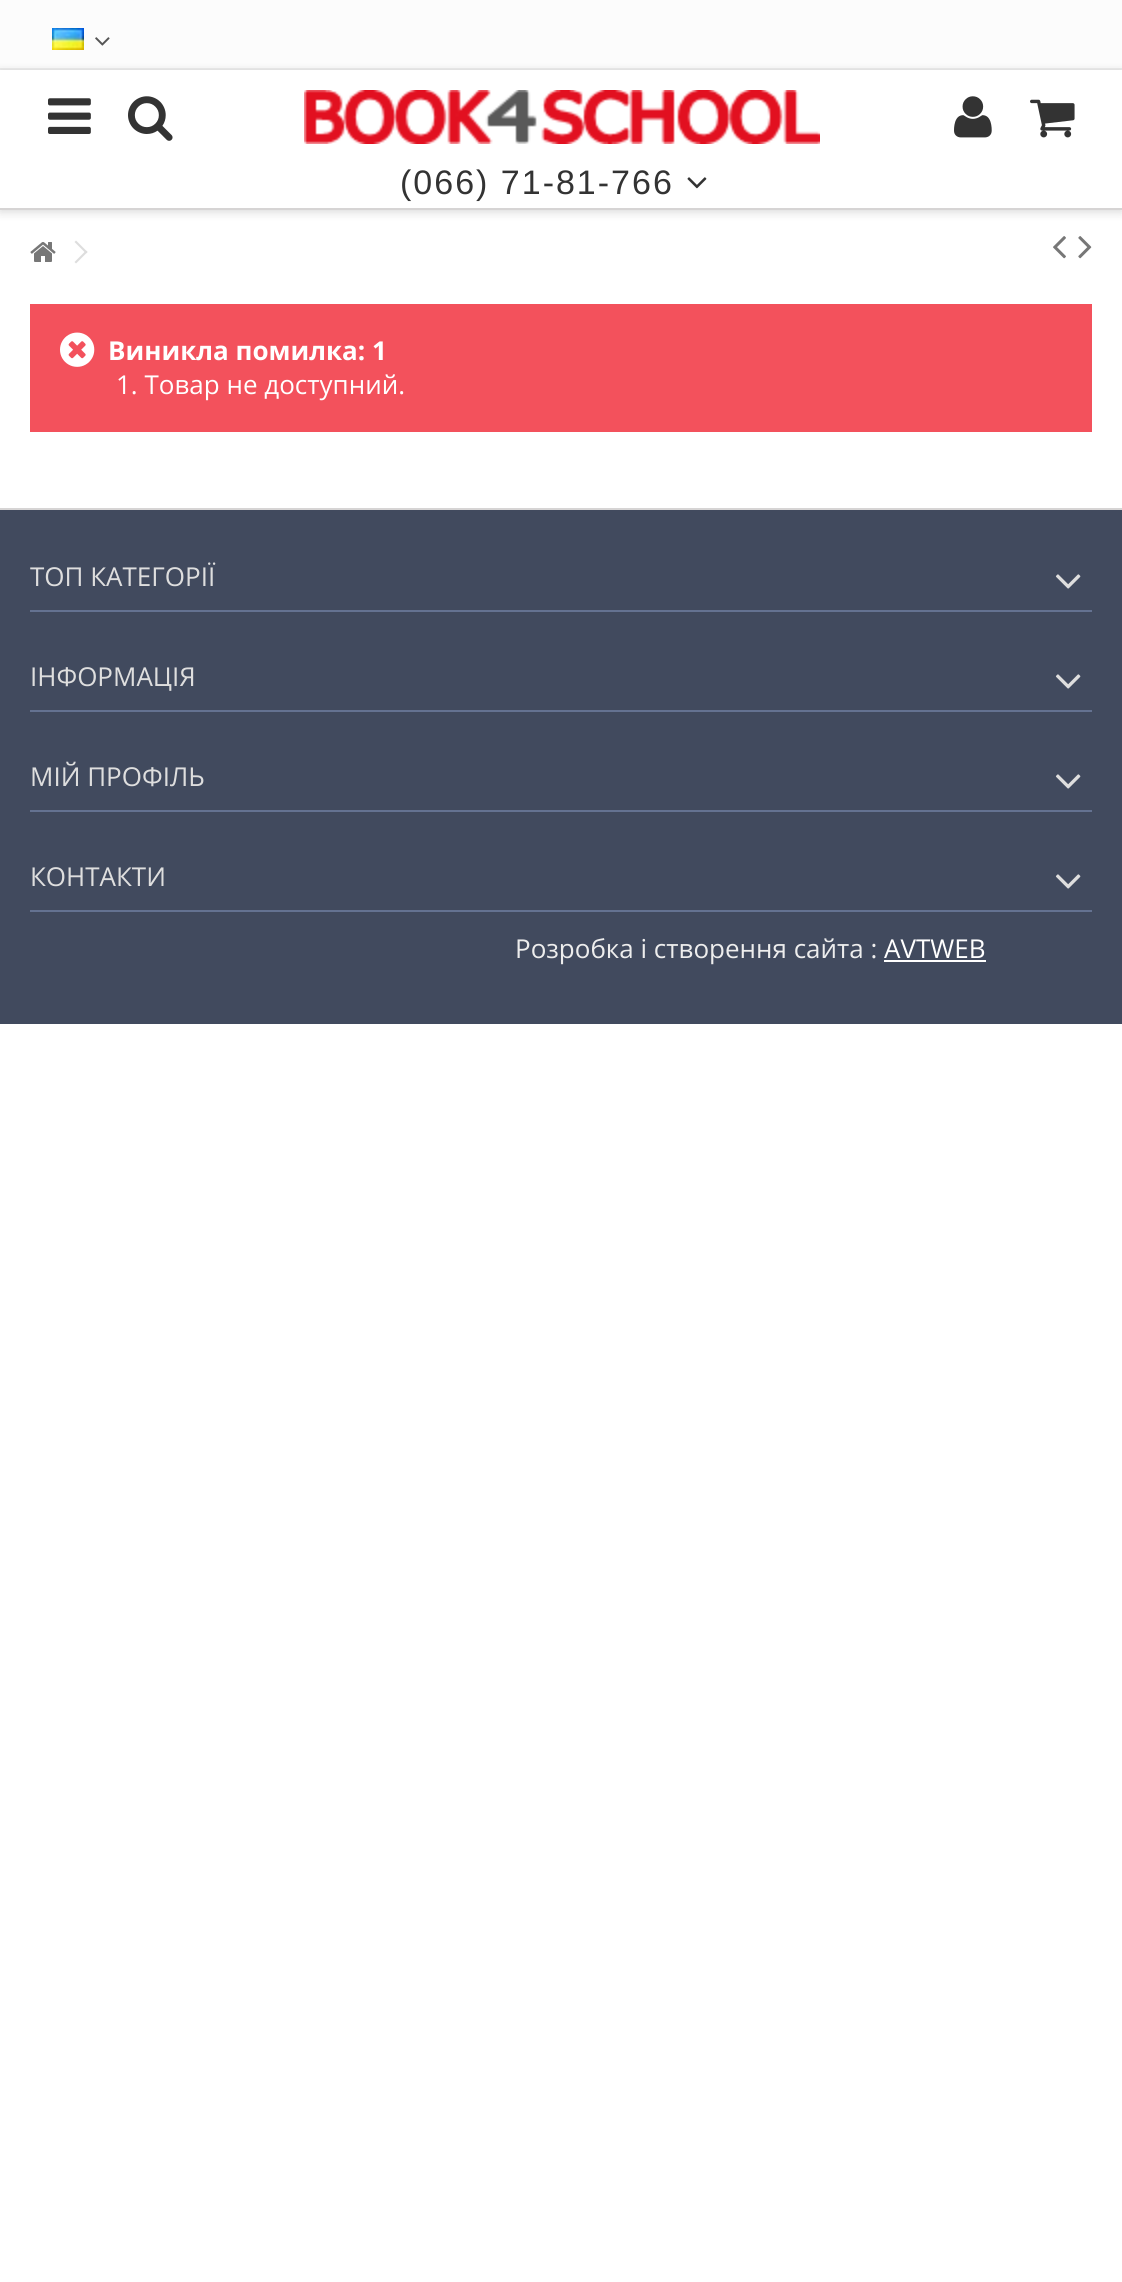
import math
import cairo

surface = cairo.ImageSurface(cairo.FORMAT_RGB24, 1122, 2282)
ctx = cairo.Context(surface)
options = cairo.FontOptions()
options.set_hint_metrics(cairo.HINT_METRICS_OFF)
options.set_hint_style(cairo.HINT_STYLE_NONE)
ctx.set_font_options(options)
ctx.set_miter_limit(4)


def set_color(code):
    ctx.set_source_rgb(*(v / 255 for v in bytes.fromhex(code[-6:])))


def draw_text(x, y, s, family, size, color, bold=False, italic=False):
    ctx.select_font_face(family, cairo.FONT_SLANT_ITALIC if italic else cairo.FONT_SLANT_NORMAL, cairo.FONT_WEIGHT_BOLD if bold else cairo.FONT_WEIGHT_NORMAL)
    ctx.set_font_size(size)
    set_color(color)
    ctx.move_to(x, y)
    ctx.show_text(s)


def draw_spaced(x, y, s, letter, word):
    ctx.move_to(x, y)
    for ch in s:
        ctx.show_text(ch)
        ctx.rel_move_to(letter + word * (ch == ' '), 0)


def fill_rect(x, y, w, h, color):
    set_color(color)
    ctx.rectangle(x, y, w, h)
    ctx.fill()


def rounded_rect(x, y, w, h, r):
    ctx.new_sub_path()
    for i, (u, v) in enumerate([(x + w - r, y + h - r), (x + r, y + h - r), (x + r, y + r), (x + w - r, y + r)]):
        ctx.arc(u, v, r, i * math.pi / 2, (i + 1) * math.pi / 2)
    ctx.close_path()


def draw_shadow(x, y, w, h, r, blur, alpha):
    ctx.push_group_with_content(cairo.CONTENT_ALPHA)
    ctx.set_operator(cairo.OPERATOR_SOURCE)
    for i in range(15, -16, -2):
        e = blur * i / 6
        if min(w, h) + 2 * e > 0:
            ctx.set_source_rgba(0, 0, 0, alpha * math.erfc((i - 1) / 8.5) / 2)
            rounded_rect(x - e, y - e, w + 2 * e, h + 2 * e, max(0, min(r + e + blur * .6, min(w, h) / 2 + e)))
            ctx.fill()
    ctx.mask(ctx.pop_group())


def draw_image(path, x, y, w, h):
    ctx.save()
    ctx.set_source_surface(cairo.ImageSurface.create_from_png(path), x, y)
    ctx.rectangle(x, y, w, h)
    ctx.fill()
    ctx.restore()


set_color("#ffffff")
ctx.paint()
fill_rect(0, 0, 1122, 68, "#fcfcfc")
fill_rect(0, 68, 1122, 2, "#ededed")
draw_image("assets/img1.png", 52, 28, 32, 22)
draw_image("assets/img2.png", 95, 37, 15, 9)
ctx.save()
ctx.set_fill_rule(cairo.FILL_RULE_EVEN_ODD)
ctx.new_path()
ctx.move_to(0, 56)
ctx.line_to(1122, 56)
ctx.line_to(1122, 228)
ctx.line_to(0, 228)
ctx.close_path()
ctx.move_to(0, 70)
ctx.line_to(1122, 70)
ctx.line_to(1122, 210)
ctx.line_to(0, 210)
ctx.close_path()
ctx.clip()
set_color("#000000")
draw_shadow(0, 72, 1122, 140, 0, 5, 0.15)
ctx.restore()
fill_rect(0, 208, 1122, 2, "#d6d4d4")
draw_image("assets/img3.png", 48, 98, 43, 36)
draw_image("assets/img4.png", 128, 96, 45, 45)
draw_image("assets/img5.png", 304, 90, 516, 54)
draw_image("assets/img6.png", 954, 96, 38, 42)
draw_image("assets/img7.png", 1030, 99, 45, 39)
ctx.select_font_face("Liberation Sans")
ctx.set_font_size(34)
set_color("#333333")
draw_spaced(400, 194, "(066) 71-81-766", 2, 0)
draw_image("assets/img8.png", 687, 177, 20, 12)
draw_image("assets/img9.png", 30, 242, 26, 20)
set_color("#dddddd")
ctx.new_path()
ctx.move_to(76, 240.5)
ctx.line_to(87.5, 252)
ctx.line_to(86, 253.5)
ctx.line_to(74.5, 242)
ctx.close_path()
ctx.fill()
ctx.new_path()
ctx.move_to(86, 250.5)
ctx.line_to(87.5, 252)
ctx.line_to(76, 263.5)
ctx.line_to(74.5, 262)
ctx.close_path()
ctx.fill()
draw_image("assets/img10.png", 1053, 236, 13, 23)
draw_image("assets/img11.png", 1078, 236, 14, 23)
fill_rect(30, 304, 1062, 128, "#f3515c")
draw_image("assets/img12.png", 60, 332, 35, 35)
draw_text(108, 360, "Виникла помилка: 1", "Open Sans", 26, "#ffffff", bold=True)
draw_text(116, 394, "1. Товар не доступний.", "Open Sans", 26, "#ffffff")
fill_rect(0, 508, 1122, 2, "#d6d4d4")
fill_rect(0, 510, 1122, 514, "#414a5e")
fill_rect(30, 610, 1062, 2, "#647291")
draw_text(30, 586, "ТОП КАТЕГОРІЇ", "Open Sans", 26, "#dedede")
draw_image("assets/img13.png", 1055, 574, 26, 15)
fill_rect(30, 710, 1062, 2, "#647291")
draw_text(30, 686, "ІНФОРМАЦІЯ", "Open Sans", 26, "#dedede")
draw_image("assets/img13.png", 1055, 674, 26, 15)
fill_rect(30, 810, 1062, 2, "#647291")
draw_text(30, 786, "МІЙ ПРОФІЛЬ", "Open Sans", 26, "#dedede")
draw_image("assets/img13.png", 1055, 774, 26, 15)
fill_rect(30, 910, 1062, 2, "#647291")
draw_text(30, 886, "КОНТАКТИ", "Open Sans", 26, "#dedede")
draw_image("assets/img13.png", 1055, 874, 26, 15)
draw_text(515, 958, "Розробка і створення сайта :", "Open Sans", 26, "#ededed")
draw_text(884, 958, "AVTWEB", "Open Sans", 26, "#ffffff")
fill_rect(884, 960, 102, 2, "#ffffff")
surface.write_to_png("output.png")
